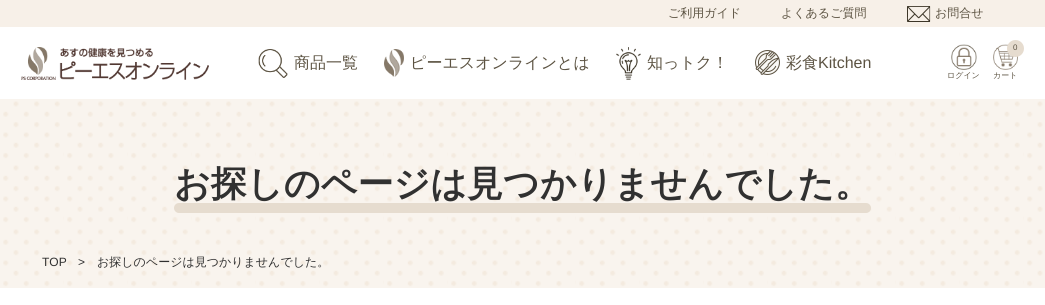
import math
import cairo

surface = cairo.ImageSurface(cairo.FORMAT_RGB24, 1045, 305)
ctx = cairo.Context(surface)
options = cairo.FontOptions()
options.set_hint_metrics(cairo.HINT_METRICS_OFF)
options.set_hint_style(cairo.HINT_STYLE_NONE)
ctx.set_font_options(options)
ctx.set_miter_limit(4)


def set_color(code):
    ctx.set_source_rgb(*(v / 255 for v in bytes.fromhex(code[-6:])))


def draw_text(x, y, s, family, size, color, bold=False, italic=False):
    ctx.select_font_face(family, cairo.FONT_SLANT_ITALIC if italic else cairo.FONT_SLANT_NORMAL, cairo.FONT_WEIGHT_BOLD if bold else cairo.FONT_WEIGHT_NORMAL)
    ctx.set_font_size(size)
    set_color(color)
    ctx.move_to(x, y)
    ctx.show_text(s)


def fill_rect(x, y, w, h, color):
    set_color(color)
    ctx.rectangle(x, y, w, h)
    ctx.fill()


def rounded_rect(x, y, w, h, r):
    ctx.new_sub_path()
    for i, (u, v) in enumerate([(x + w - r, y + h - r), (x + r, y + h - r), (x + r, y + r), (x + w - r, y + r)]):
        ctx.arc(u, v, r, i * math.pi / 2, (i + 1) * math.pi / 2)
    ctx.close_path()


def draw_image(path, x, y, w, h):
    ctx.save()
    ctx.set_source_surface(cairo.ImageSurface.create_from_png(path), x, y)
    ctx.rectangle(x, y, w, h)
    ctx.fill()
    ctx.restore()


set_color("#ffffff")
ctx.paint()
fill_rect(0, 0, 1045, 27, "#f7f0e8")
draw_text(668, 17, "ご利用ガイド", "WenQuanYi Zen Hei Medium", 12, "#5c5342")
draw_text(781, 17, "よくあるご質問", "WenQuanYi Zen Hei Medium", 12, "#5c5342")
draw_image("assets/img1.png", 907, 6, 24, 16)
draw_text(935, 17, "お問合せ", "WenQuanYi Zen Hei Medium", 12, "#5c5342")
draw_image("assets/img2.png", 21, 47, 188, 33)
draw_image("assets/img3.png", 258, 49, 30, 29)
draw_text(294, 68, "商品一覧", "WenQuanYi Zen Hei Medium", 16, "#5c5342")
draw_image("assets/img4.png", 384, 49, 20, 28)
draw_text(410, 68, "ピーエスオンラインとは", "WenQuanYi Zen Hei Medium", 16, "#5c5342")
draw_image("assets/img5.png", 616, 47, 25, 33)
draw_text(647, 68, "知っトク！", "WenQuanYi Zen Hei Medium", 16, "#5c5342")
draw_image("assets/img6.png", 755, 50, 25, 25)
draw_text(786, 68, "彩食", "WenQuanYi Zen Hei Medium", 16, "#5c5342")
draw_text(818, 68, "Kitchen", "Liberation Sans", 16, "#5c5342")
draw_image("assets/img7.png", 951, 44, 26, 26)
draw_text(947, 78, "ログイン", "WenQuanYi Zen Hei Medium", 8, "#5c5342")
draw_image("assets/img8.png", 993, 44, 25, 26)
set_color("#e6dccf")
ctx.arc(1015.5, 48.5, 8.5, 0, 2 * math.pi)
ctx.fill()
draw_text(1013, 50, "0", "Liberation Sans", 8, "#5c5342")
draw_text(993, 78, "カート", "WenQuanYi Zen Hei Medium", 8, "#5c5342")
draw_image("assets/img9.png", 0, 99, 1045, 189)
draw_text(174, 196, "お探しのページは見つかりませんでした。", "WenQuanYi Zen Hei", 36, "#313131", bold=True)
set_color("#e6dccf")
rounded_rect(174, 203, 697, 10, 5)
ctx.fill()
draw_text(42, 266, "TOP", "Liberation Sans", 12, "#313131")
draw_text(78, 266, ">", "Liberation Sans", 12, "#313131")
draw_text(97, 266, "お探しのページは見つかりませんでした。", "WenQuanYi Zen Hei Medium", 12, "#313131")
surface.write_to_png("output.png")
